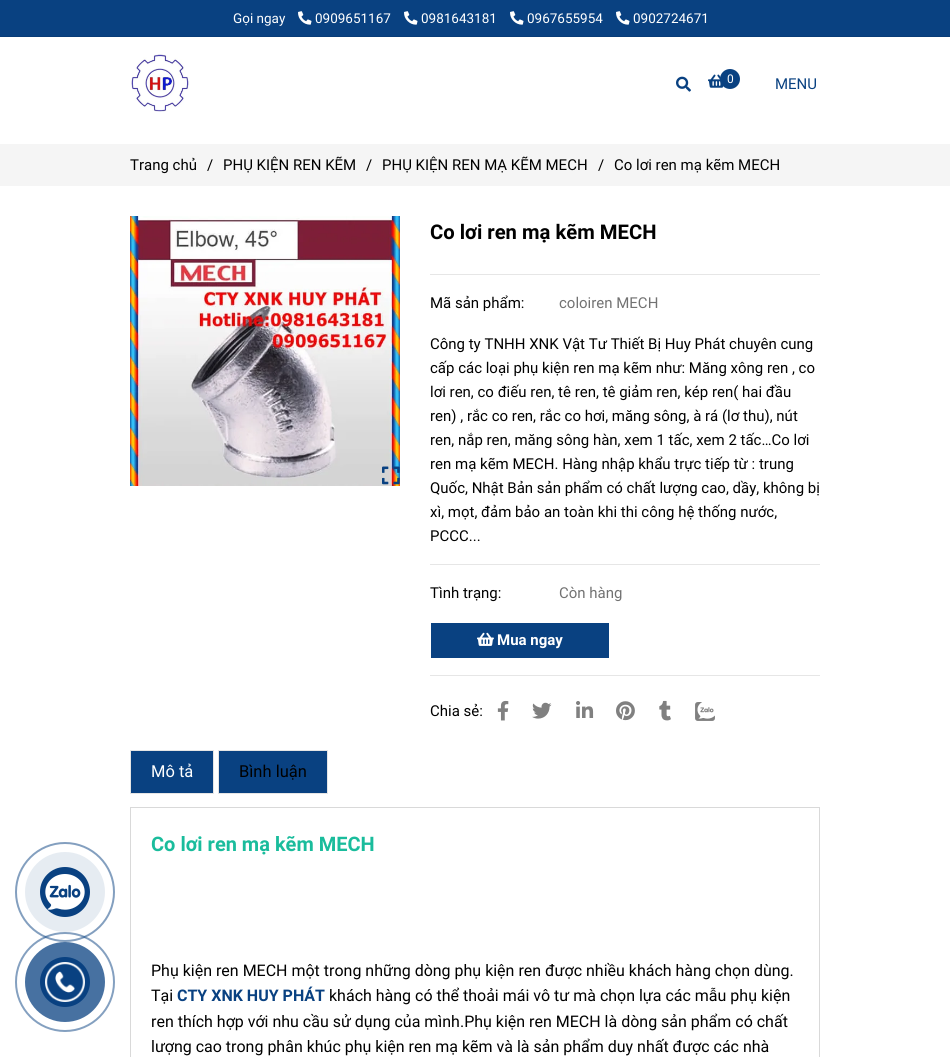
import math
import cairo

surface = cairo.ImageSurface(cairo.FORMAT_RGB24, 950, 1057)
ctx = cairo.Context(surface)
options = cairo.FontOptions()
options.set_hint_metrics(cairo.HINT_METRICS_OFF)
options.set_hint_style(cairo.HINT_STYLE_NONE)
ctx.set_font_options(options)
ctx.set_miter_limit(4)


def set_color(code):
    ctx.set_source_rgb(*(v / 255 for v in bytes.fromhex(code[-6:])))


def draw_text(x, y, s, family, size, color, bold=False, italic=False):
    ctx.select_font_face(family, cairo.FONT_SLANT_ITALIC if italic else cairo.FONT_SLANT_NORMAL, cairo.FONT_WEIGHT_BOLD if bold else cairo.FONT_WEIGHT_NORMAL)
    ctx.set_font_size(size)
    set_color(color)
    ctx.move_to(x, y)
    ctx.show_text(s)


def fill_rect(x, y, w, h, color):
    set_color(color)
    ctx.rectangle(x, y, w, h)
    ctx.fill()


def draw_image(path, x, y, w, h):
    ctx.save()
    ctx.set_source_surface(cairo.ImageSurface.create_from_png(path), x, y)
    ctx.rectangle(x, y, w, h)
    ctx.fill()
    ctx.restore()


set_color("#ffffff")
ctx.paint()
fill_rect(0, 0, 950, 36, "#094181")
fill_rect(0, 36, 950, 1, "#083c77")
draw_text(233, 23, "Gọi ngay", "Roboto", 13.5, "#ffffff")
draw_image("assets/img1.png", 298, 11, 14, 14)
draw_text(315, 23, "0909651167", "Roboto", 13.5, "#ffffff")
draw_image("assets/img1.png", 404, 11, 14, 14)
draw_text(421, 23, "0981643181", "Roboto", 13.5, "#ffffff")
draw_image("assets/img1.png", 510, 11, 14, 14)
draw_text(527, 23, "0967655954", "Roboto", 13.5, "#ffffff")
draw_image("assets/img1.png", 616, 11, 14, 14)
draw_text(633, 23, "0902724671", "Roboto", 13.5, "#ffffff")
draw_image("assets/img2.png", 130, 54, 60, 58)
draw_image("assets/img3.png", 676, 76, 15, 16)
draw_image("assets/img4.png", 708, 74, 16, 14)
set_color("#094181")
ctx.arc(730, 79, 10, 0, 2 * math.pi)
ctx.fill()
draw_text(727, 83, "0", "Roboto", 12, "#ffffff")
draw_text(775, 89, "MENU", "Roboto", 15, "#094181")
fill_rect(0, 144, 950, 42, "#f5f5f5")
draw_text(130, 170, "Trang chủ", "Roboto", 15, "#000000")
draw_text(207, 170, "/", "Roboto", 15, "#000000")
draw_text(223, 170, "PHỤ KIỆN REN KẼM", "Roboto", 15, "#000000")
draw_text(366, 170, "/", "Roboto", 15, "#000000")
draw_text(382, 170, "PHỤ KIỆN REN MẠ KẼM MECH", "Roboto", 15, "#000000")
draw_text(598, 170, "/", "Roboto", 15, "#000000")
draw_text(614, 170, "Co lơi ren mạ kẽm MECH", "Roboto", 15, "#000000")
ctx.new_path()
ctx.arc(65, 982, 49, 0, 2 * math.pi)
set_color("#84a0c0")
ctx.stroke()
ctx.arc(65, 892, 49, 0, 2 * math.pi)
ctx.set_source_rgba(0.035, 0.255, 0.506, 0.5)
ctx.stroke()
set_color("#e6ecf2")
ctx.arc(65, 892, 40, 0, 2 * math.pi)
ctx.fill()
set_color("#094181")
ctx.arc(65, 892, 25, 0, 2 * math.pi)
ctx.fill()
draw_image("assets/img5.png", 45, 874, 40, 36)
set_color("#4771a1")
ctx.arc(65, 982, 40, 0, 2 * math.pi)
ctx.fill()
set_color("#094181")
ctx.arc(65, 982, 25, 0, 2 * math.pi)
ctx.fill()
draw_image("assets/img6.png", 45, 962, 40, 40)
draw_image("assets/img7.png", 130, 216, 270, 270)
draw_image("assets/img8.png", 382, 466, 18, 19)
draw_text(430, 239, "Co lơi ren mạ kẽm MECH", "Roboto", 20.25, "#000000", bold=True)
fill_rect(430, 274, 390, 1, "#e6e6e6")
draw_text(430, 308, "Mã sản phẩm:", "Roboto", 15, "#000000")
draw_text(559, 308, "coloiren MECH", "Roboto", 15, "#727272")
draw_text(430, 349, "Công ty TNHH XNK Vật Tư Thiết Bị Huy Phát chuyên cung", "Roboto", 15, "#000000")
draw_text(430, 373, "cấp các loại phụ kiện ren mạ kẽm như: Măng xông ren , co", "Roboto", 15, "#000000")
draw_text(430, 397, "lơi ren, co điếu ren, tê ren, tê giảm ren, kép ren( hai đầu", "Roboto", 15, "#000000")
draw_text(430, 421, "ren) , rắc co ren, rắc co hơi, măng sông, à rá (lơ thu), nút", "Roboto", 15, "#000000")
draw_text(430, 445, "ren, nắp ren, măng sông hàn, xem 1 tấc, xem 2 tấc…Co lơi", "Roboto", 15, "#000000")
draw_text(430, 469, "ren mạ kẽm MECH. Hàng nhập khẩu trực tiếp từ : trung", "Roboto", 15, "#000000")
draw_text(430, 493, "Quốc, Nhật Bản sản phẩm có chất lượng cao, dầy, không bị", "Roboto", 15, "#000000")
draw_text(430, 517, "xì, mọt, đảm bảo an toàn khi thi công hệ thống nước,", "Roboto", 15, "#000000")
draw_text(430, 541, "PCCC...", "Roboto", 15, "#000000")
fill_rect(430, 564, 390, 1, "#e6e6e6")
draw_text(430, 598, "Tình trạng:", "Roboto", 15, "#000000")
draw_text(559, 598, "Còn hàng", "Roboto", 15, "#727272")
fill_rect(431, 623, 178, 35, "#094181")
draw_image("assets/img9.png", 477, 632, 17, 14)
draw_text(497, 645, "Mua ngay", "Roboto", 15, "#ffffff", bold=True)
fill_rect(430, 675, 390, 1, "#e6e6e6")
draw_text(430, 716, "Chia sẻ:", "Roboto", 15, "#000000")
draw_image("assets/img10.png", 497, 700, 12, 21)
draw_image("assets/img11.png", 532, 702, 20, 17)
draw_image("assets/img12.png", 576, 701, 18, 17)
draw_image("assets/img13.png", 616, 701, 19, 20)
draw_image("assets/img14.png", 659, 700, 12, 21)
draw_image("assets/img15.png", 695, 702, 20, 19)
set_color("#094181")
ctx.rectangle(130.5, 750.5, 83, 43)
ctx.fill_preserve()
set_color("#e5e5e5")
ctx.set_line_width(1)
ctx.stroke()
draw_text(151, 777, "Mô tả", "Roboto", 16.5, "#ffffff")
set_color("#094181")
ctx.rectangle(218.5, 750.5, 109, 43)
ctx.fill_preserve()
set_color("#e5e5e5")
ctx.stroke()
draw_text(239, 777, "Bình luận", "Roboto", 16.5, "#000000")
ctx.rectangle(130.5, 807.5, 689, 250)
set_color("#d9d9d9")
ctx.stroke()
draw_text(151, 851, "Co lơi ren mạ kẽm MECH", "Roboto", 20, "#1abc9c", bold=True)
draw_text(151, 976, "Phụ kiện ren MECH một trong những dòng phụ kiện ren được nhiều khách hàng chọn dùng.", "Roboto", 16, "#000000")
draw_text(151, 1001, "Tại", "Roboto", 16, "#000000")
draw_text(177, 1001, "CTY XNK HUY PHÁT", "Roboto", 16, "#094181", bold=True)
draw_text(329, 1001, "khách hàng có thể thoải mái vô tư mà chọn lựa các mẫu phụ kiện", "Roboto", 16, "#000000")
draw_text(151, 1027, "ren thích hợp với nhu cầu sử dụng của mình.Phụ kiện ren MECH là dòng sản phẩm có chất", "Roboto", 16, "#000000")
draw_text(151, 1052, "lượng cao trong phân khúc phụ kiện ren mạ kẽm và là sản phẩm duy nhất được các nhà", "Roboto", 16, "#000000")
surface.write_to_png("output.png")
